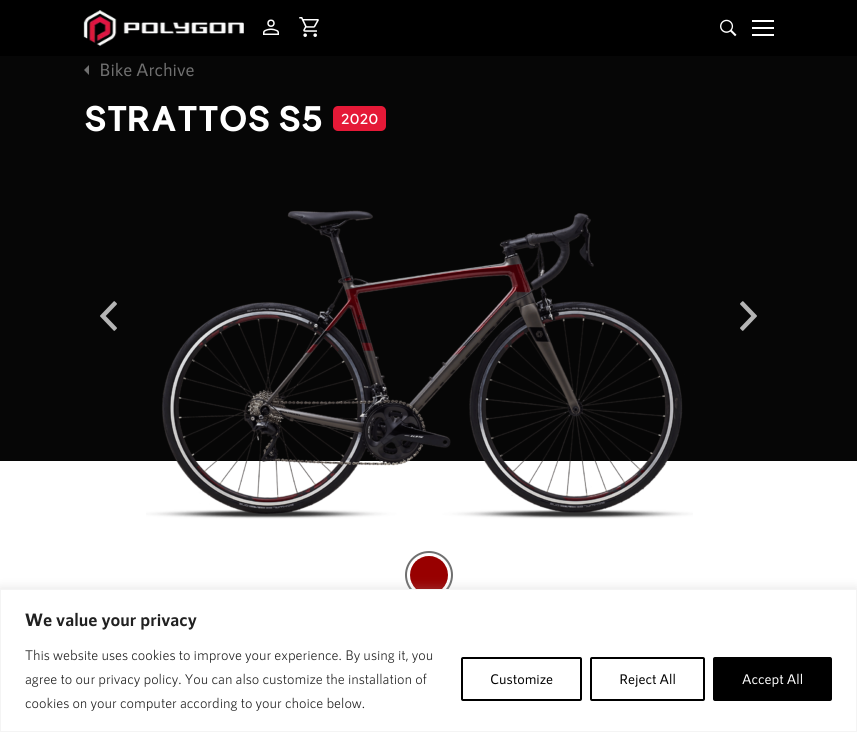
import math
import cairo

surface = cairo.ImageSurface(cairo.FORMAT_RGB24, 857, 732)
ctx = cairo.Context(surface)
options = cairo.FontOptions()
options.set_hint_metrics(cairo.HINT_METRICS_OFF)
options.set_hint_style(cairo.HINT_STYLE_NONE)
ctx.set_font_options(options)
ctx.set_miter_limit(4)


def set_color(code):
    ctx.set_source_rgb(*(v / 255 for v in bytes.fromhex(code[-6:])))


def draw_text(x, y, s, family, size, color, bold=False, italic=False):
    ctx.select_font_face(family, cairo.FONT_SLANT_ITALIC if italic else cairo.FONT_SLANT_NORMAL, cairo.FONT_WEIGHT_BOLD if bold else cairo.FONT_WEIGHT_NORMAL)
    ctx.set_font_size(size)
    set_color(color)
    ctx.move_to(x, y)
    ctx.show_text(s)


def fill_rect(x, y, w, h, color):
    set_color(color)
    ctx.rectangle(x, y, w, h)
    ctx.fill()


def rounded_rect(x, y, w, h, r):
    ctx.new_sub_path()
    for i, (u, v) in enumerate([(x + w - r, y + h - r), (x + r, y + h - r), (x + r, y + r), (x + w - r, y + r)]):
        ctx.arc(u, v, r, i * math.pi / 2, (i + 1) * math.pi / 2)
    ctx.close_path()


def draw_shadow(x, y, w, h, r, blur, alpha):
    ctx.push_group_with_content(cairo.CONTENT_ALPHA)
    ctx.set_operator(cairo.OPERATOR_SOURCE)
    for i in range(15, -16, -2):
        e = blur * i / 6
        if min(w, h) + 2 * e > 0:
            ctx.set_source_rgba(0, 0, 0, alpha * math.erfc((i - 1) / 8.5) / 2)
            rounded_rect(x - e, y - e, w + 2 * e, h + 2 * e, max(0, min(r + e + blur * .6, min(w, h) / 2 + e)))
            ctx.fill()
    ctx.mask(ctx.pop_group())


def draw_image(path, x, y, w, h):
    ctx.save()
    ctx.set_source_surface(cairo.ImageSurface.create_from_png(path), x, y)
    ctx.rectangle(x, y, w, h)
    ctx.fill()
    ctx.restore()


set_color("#ffffff")
ctx.paint()
fill_rect(0, 0, 857, 56, "#000000")
draw_image("assets/img1.png", 83, 10, 161, 36)
draw_image("assets/img2.png", 263, 19, 16, 16)
draw_image("assets/img3.png", 299, 17, 20, 20)
draw_image("assets/img4.png", 720, 19, 17, 18)
fill_rect(752, 20, 22, 2, "#ffffff")
fill_rect(752, 27, 22, 2, "#ffffff")
fill_rect(752, 34, 22, 2, "#ffffff")
fill_rect(0, 56, 857, 405, "#060606")
set_color("#707070")
ctx.new_path()
ctx.move_to(89, 65)
ctx.line_to(89, 75)
ctx.line_to(84, 70)
ctx.close_path()
ctx.fill()
draw_text(99, 76, "Bike Archive", "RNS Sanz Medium", 18, "#707070")
draw_text(84, 131, "STRATTOS S5", "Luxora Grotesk", 34, "#ffffff", bold=True)
set_color("#e51937")
rounded_rect(333, 106, 53, 25, 5)
ctx.fill()
draw_text(341, 124, "2020", "Luxora Grotesk", 14, "#ffffff")
draw_image("assets/img5.png", 100, 301, 17, 30)
draw_image("assets/img6.png", 146, 210, 547, 309)
draw_image("assets/img7.png", 740, 301, 17, 30)
draw_image("assets/img8.png", 410, 556, 38, 33)
ctx.arc(429, 575, 23, 0, 2 * math.pi)
set_color("#707070")
ctx.stroke()
set_color("#acabab")
draw_shadow(0, 588, 857, 143, 0, 5, 0.3)
set_color("#ffffff")
ctx.rectangle(0.5, 589.5, 856, 142)
ctx.fill_preserve()
set_color("#f4f4f4")
ctx.set_line_width(1)
ctx.stroke()
draw_text(25, 626, "We value your privacy", "RNS Sanz", 18, "#212121", bold=True)
draw_text(25, 660, "This website uses cookies to improve your experience. By using it, you", "RNS Sanz", 14, "#212121")
draw_text(25, 684, "agree to our privacy policy. You can also customize the installation of", "RNS Sanz", 14, "#212121")
draw_text(25, 708, "cookies on your computer according to your choice below.", "RNS Sanz", 14, "#212121")
rounded_rect(462, 658, 119, 42, 1)
set_color("#000000")
ctx.set_line_width(2)
ctx.stroke()
draw_text(490, 684, "Customize", "RNS Sanz Medium", 14, "#000000")
rounded_rect(591, 658, 113, 42, 1)
ctx.stroke()
draw_text(619, 684, "Reject All", "RNS Sanz Medium", 14, "#000000")
rounded_rect(714, 658, 117, 42, 1)
ctx.fill_preserve()
ctx.stroke()
draw_text(742, 684, "Accept All", "RNS Sanz Medium", 14, "#ffffff")
surface.write_to_png("output.png")
